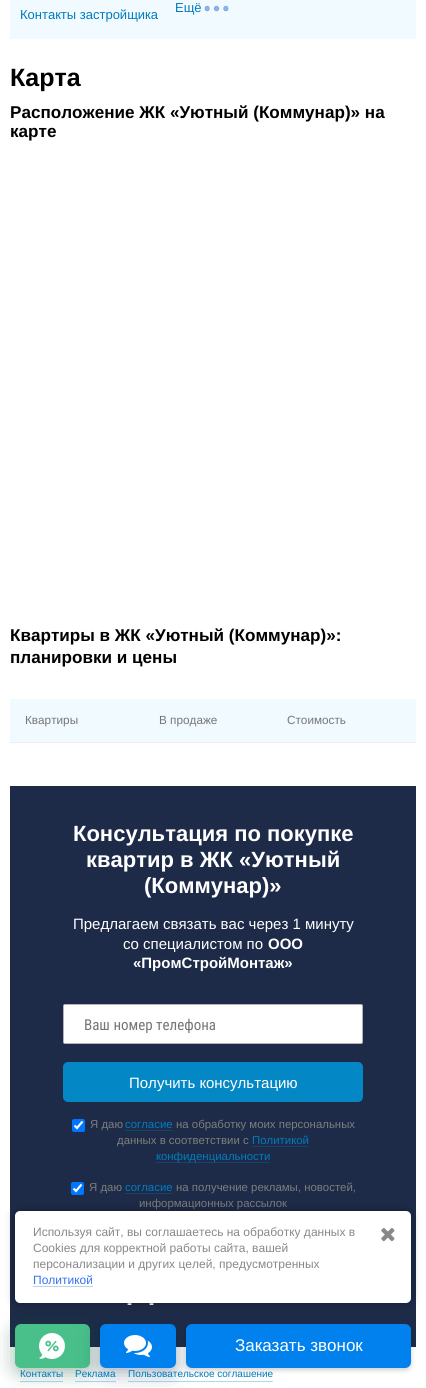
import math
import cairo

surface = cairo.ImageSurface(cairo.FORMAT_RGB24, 426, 1388)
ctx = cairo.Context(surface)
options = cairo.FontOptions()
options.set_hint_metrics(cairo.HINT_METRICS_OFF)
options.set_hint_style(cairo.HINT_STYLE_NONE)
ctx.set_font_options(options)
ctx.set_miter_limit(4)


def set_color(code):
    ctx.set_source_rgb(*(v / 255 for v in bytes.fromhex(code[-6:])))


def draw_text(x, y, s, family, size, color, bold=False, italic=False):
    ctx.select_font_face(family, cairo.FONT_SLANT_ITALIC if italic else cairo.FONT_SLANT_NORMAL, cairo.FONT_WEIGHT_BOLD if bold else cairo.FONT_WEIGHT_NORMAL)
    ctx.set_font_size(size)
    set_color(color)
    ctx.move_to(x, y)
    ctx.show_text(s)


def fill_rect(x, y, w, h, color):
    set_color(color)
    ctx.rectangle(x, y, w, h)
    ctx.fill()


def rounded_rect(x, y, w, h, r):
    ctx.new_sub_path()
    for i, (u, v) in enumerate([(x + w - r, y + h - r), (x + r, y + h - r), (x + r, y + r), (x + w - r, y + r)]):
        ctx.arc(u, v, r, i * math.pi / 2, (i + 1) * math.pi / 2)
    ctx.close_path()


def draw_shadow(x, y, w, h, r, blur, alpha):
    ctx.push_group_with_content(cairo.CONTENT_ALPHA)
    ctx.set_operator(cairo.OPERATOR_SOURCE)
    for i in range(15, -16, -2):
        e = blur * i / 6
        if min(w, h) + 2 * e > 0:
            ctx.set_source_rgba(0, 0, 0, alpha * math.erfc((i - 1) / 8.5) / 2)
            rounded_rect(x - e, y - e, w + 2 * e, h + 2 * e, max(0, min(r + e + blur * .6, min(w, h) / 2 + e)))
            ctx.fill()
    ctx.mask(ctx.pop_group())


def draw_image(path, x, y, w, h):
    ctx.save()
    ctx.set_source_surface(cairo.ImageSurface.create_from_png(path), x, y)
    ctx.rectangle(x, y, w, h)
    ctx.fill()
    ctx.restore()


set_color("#ffffff")
ctx.paint()
fill_rect(10, 0, 406, 39, "#f1faff")
draw_text(20, 19, "Контакты застройщика", "Liberation Sans", 13, "#007bbe")
draw_text(175, 12, "Ещё", "Liberation Sans", 13, "#007bbe")
draw_image("assets/img1.png", 204, 5, 25, 7)
draw_text(10, 86, "Карта", "Liberation Sans", 25, "#000000", bold=True)
draw_text(10, 118, "Расположение ЖК «Уютный (Коммунар)» на", "Liberation Sans", 17.1, "#000000", bold=True)
draw_text(10, 137, "карте", "Liberation Sans", 17.1, "#000000", bold=True)
draw_text(10, 641, "Квартиры в ЖК «Уютный (Коммунар)»:", "Liberation Sans", 17.1, "#000000", bold=True)
draw_text(10, 663, "планировки и цены", "Liberation Sans", 17.1, "#000000", bold=True)
fill_rect(10, 699, 406, 43, "#f1faff")
fill_rect(10, 742, 406, 1, "#eeeeef")
draw_text(25, 724, "Квартиры", "Liberation Sans", 11.75, "#767676")
draw_text(159, 724, "В продаже", "Liberation Sans", 11.75, "#767676")
draw_text(287, 724, "Стоимость", "Liberation Sans", 11.75, "#767676")
fill_rect(10, 786, 406, 561, "#1e2b48")
draw_text(73, 841, "Консультация по покупке", "Liberation Sans", 22, "#ffffff", bold=True)
draw_text(86, 867, "квартир в ЖК «Уютный", "Liberation Sans", 22, "#ffffff", bold=True)
draw_text(144, 893, "(Коммунар)»", "Liberation Sans", 22, "#ffffff", bold=True)
draw_text(73, 929, "Предлагаем связать вас через 1 минуту", "Liberation Sans", 15, "#ffffff")
draw_text(123, 949, "со специалистом по", "Liberation Sans", 15, "#ffffff")
draw_text(268, 949, "ООО", "Liberation Sans", 15, "#ffffff", bold=True)
draw_text(133, 968, "«ПромСтройМонтаж»", "Liberation Sans", 15, "#ffffff", bold=True)
rounded_rect(63.5, 1004.5, 299, 39, 1.5)
ctx.fill_preserve()
set_color("#b3b3b3")
ctx.set_line_width(1)
ctx.stroke()
draw_text(84, 1030, "Ваш номер телефона", "Roboto Condensed", 15, "#767676")
set_color("#0487c5")
rounded_rect(63, 1062, 300, 40, 5)
ctx.fill()
draw_text(129, 1088, "Получить консультацию", "Liberation Sans", 15, "#ffffff")
set_color("#0075ff")
rounded_rect(72, 1119, 13, 13, 2)
ctx.fill()
ctx.new_path()
ctx.move_to(74.5, 1125.5)
ctx.line_to(77, 1128)
ctx.line_to(82.5, 1121.5)
set_color("#ffffff")
ctx.set_line_width(2.1)
ctx.stroke()
draw_text(90, 1128, "Я даю", "Liberation Sans", 11.4, "#7d7d7d")
draw_text(125, 1128, "согласие", "Liberation Sans", 11.4, "#007bbe")
fill_rect(125, 1130, 48, 1, "#15436b")
draw_text(176, 1128, "на обработку моих персональных", "Liberation Sans", 11.4, "#7d7d7d")
draw_text(117, 1144, "данных в соответствии с", "Liberation Sans", 11.4, "#7d7d7d")
draw_text(252, 1144, "Политикой", "Liberation Sans", 11.4, "#007bbe")
fill_rect(252, 1146, 56, 1, "#15436b")
fill_rect(156, 1162, 114, 1, "#15436b")
draw_text(156, 1160, "конфиденциальности", "Liberation Sans", 11.4, "#007bbe")
set_color("#0075ff")
rounded_rect(71, 1182, 13, 13, 2)
ctx.fill()
ctx.new_path()
ctx.move_to(73.5, 1188.5)
ctx.line_to(76, 1191)
ctx.line_to(81.5, 1184.5)
set_color("#ffffff")
ctx.stroke()
draw_text(89, 1191, "Я даю", "Liberation Sans", 11.4, "#7d7d7d")
draw_text(125, 1191, "согласие", "Liberation Sans", 11.4, "#007bbe")
fill_rect(125, 1193, 47, 1, "#15436b")
draw_text(176, 1191, "на получение рекламы, новостей,", "Liberation Sans", 11.4, "#7d7d7d")
draw_text(139, 1207, "информационных рассылок", "Liberation Sans", 11.4, "#7d7d7d")
draw_text(127, 1308, "-", "Liberation Sans", 15, "#ffffff", bold=True)
draw_text(149, 1308, "-", "Liberation Sans", 15, "#ffffff", bold=True)
set_color("#000000")
draw_shadow(15, 1211, 396, 92, 5, 5, 0.35)
fill_rect(20, 1381, 43, 1, "#b3d7ec")
fill_rect(75, 1381, 41, 1, "#b3d7ec")
set_color("#064a27")
draw_shadow(15, 1328, 75, 44, 6, 10, 0.4)
fill_rect(128, 1381, 145, 1, "#b3d7ec")
set_color("#49bf8a")
rounded_rect(15, 1324, 75, 44, 6)
ctx.fill()
set_color("#062a4a")
draw_shadow(100, 1328, 76, 44, 6, 10, 0.4)
set_color("#ffffff")
rounded_rect(15, 1211, 396, 92, 5)
ctx.fill()
draw_text(33, 1236, "Используя сайт, вы соглашаетесь на обработку данных в", "Liberation Sans", 12, "#888888")
draw_text(33, 1252, "Cookies для корректной работы сайта, вашей", "Liberation Sans", 12, "#888888")
draw_text(33, 1268, "персонализации и других целей, предусмотренных", "Liberation Sans", 12, "#888888")
fill_rect(33, 1286, 60, 1, "#b3d7ec")
draw_text(33, 1284, "Политикой", "Liberation Sans", 12, "#3471f2")
draw_image("assets/img2.png", 381, 1228, 14, 14)
draw_text(20, 1377, "Контакты", "Liberation Sans", 10, "#007bbe")
draw_text(75, 1377, "Реклама", "Liberation Sans", 10, "#007bbe")
draw_text(128, 1377, "Пользовательское соглашение", "Liberation Sans", 10, "#007bbe")
draw_image("assets/img3.png", 39, 1333, 26, 26)
set_color("#0081ee")
rounded_rect(100, 1324, 76, 44, 6)
ctx.fill()
draw_image("assets/img4.png", 124, 1335, 28, 22)
set_color("#000000")
draw_shadow(186, 1326, 225, 44, 6, 2.5, 0.2)
set_color("#0081ee")
rounded_rect(186, 1324, 225, 44, 6)
ctx.fill()
draw_text(235, 1351, "Заказать звонок", "Liberation Sans", 17, "#ffffff")
surface.write_to_png("output.png")
